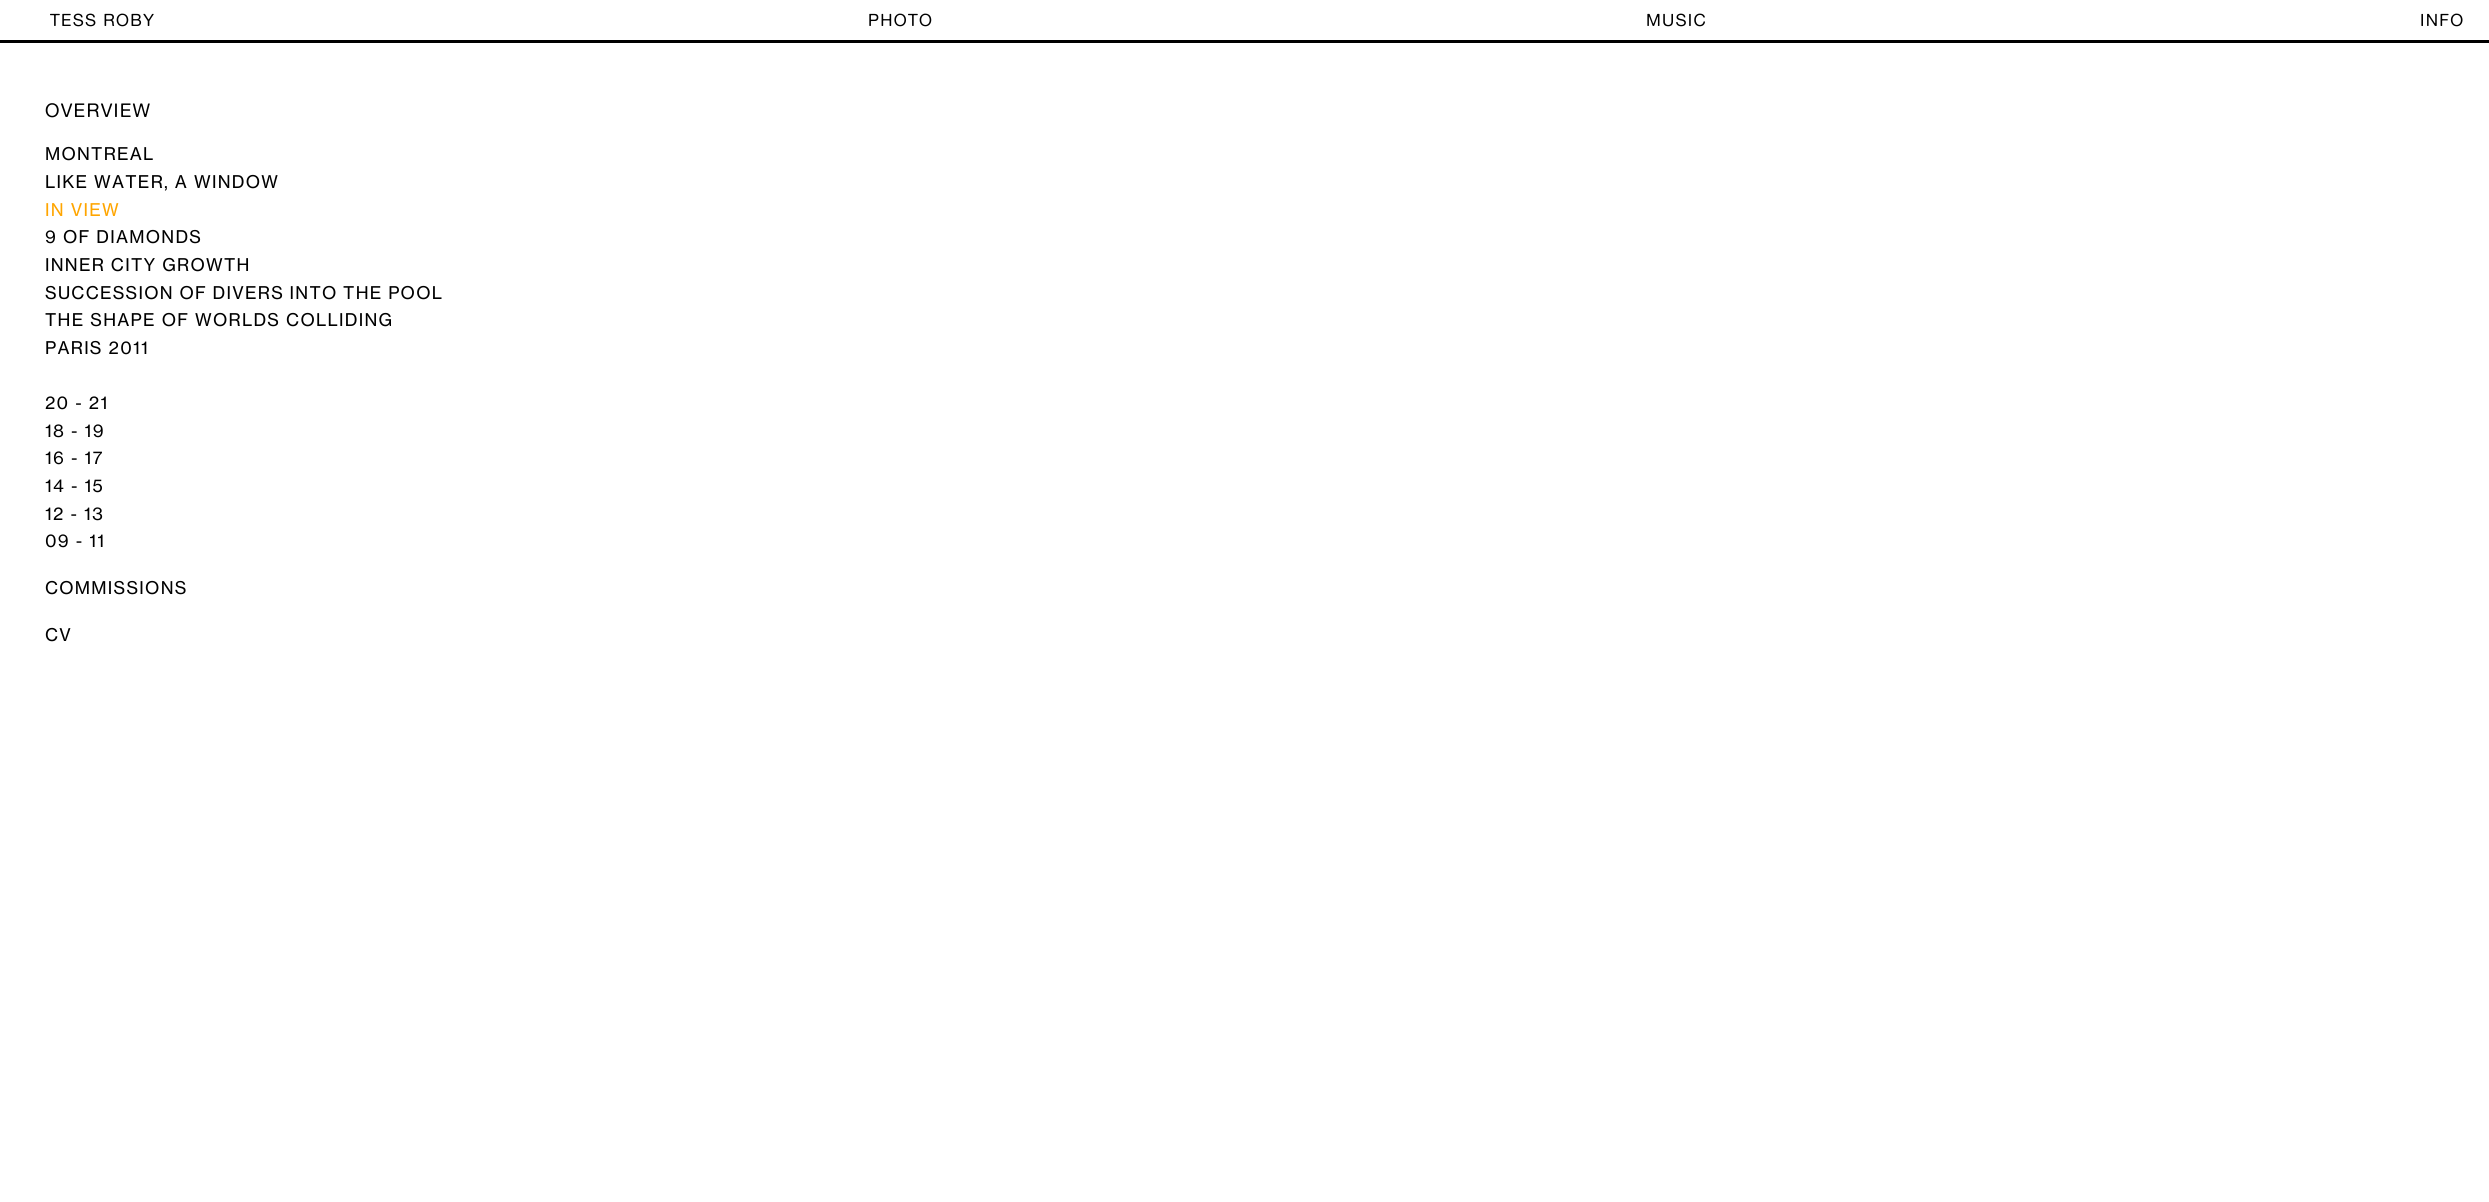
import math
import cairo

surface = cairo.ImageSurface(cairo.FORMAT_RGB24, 2489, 1202)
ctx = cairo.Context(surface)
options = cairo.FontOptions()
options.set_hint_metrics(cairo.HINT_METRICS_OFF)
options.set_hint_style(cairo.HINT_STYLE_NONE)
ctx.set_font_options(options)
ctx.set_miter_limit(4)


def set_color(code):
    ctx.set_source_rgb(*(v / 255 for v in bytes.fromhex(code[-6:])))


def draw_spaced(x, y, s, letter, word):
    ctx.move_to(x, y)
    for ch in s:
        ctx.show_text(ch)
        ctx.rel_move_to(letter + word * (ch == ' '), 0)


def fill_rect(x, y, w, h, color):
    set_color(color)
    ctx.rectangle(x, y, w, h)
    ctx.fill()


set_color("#ffffff")
ctx.paint()
fill_rect(0, 40, 2489, 3, "#000000")
ctx.select_font_face("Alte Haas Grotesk")
ctx.set_font_size(17)
draw_spaced(50, 26, "TESS ROBY", 1.25, 0)
draw_spaced(868, 26, "PHOTO", 1.25, 0)
draw_spaced(1646, 26, "MUSIC", 1.25, 0)
draw_spaced(2420, 26, "INFO", 1.25, 0)
ctx.set_font_size(19)
draw_spaced(45, 117, "OVERVIEW", 1.25, 0)
ctx.select_font_face("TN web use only")
ctx.set_font_size(17.3)
draw_spaced(45, 160, "MONTREAL", 1.25, 0)
draw_spaced(45, 188, "LIKE WATER, A WINDOW", 1.25, 0)
set_color("#ffa500")
draw_spaced(45, 216, "IN VIEW", 1.25, 0)
set_color("#000000")
draw_spaced(45, 243, "9 OF DIAMONDS", 1.25, 0)
draw_spaced(45, 271, "INNER CITY GROWTH", 1.25, 0)
draw_spaced(45, 299, "SUCCESSION OF DIVERS INTO THE POOL", 1.25, -0.25)
draw_spaced(45, 326, "THE SHAPE OF WORLDS COLLIDING", 1.25, 0)
draw_spaced(45, 354, "PARIS 2011", 1.25, 0)
draw_spaced(45, 409, "20 - 21", 1.25, 0)
draw_spaced(45, 437, "18 - 19", 1.25, 0)
draw_spaced(45, 464, "16 - 17", 1.25, 0)
draw_spaced(45, 492, "14 - 15", 1.25, 0)
draw_spaced(45, 520, "12 - 13", 1.25, 0)
draw_spaced(45, 547, "09 - 11", 1.25, 0)
draw_spaced(45, 594, "COMMISSIONS", 1.25, 0)
draw_spaced(45, 641, "CV", 1.25, 0)
surface.write_to_png("output.png")
